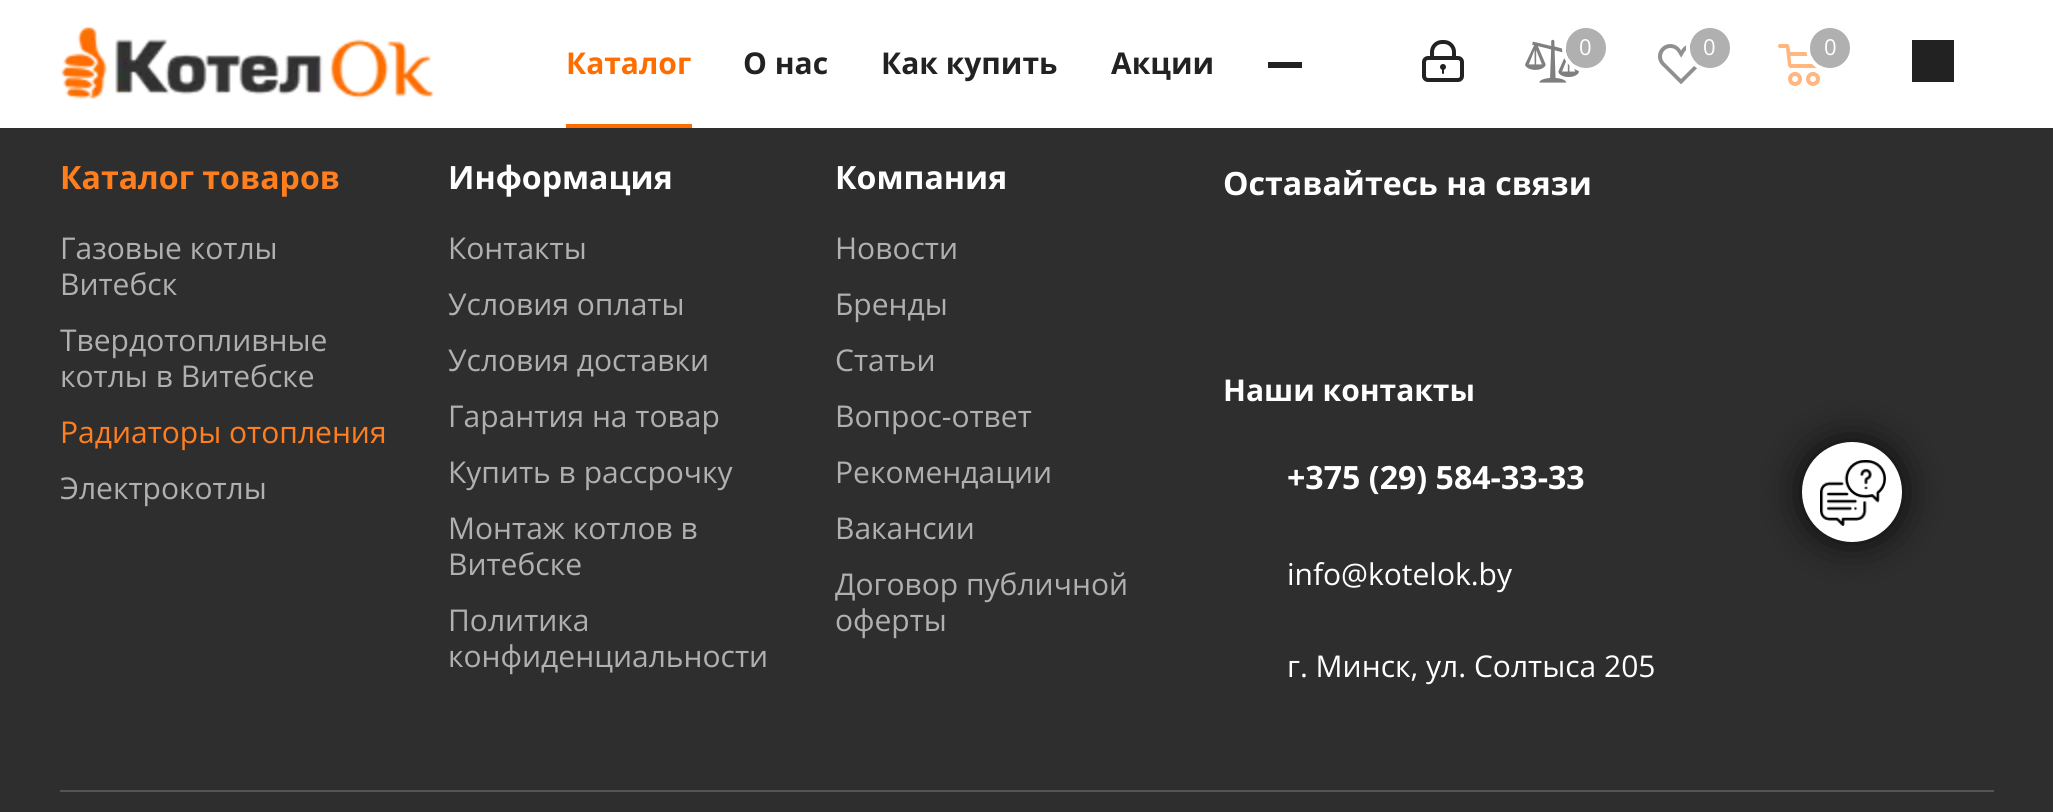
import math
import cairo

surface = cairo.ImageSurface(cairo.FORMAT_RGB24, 2053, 812)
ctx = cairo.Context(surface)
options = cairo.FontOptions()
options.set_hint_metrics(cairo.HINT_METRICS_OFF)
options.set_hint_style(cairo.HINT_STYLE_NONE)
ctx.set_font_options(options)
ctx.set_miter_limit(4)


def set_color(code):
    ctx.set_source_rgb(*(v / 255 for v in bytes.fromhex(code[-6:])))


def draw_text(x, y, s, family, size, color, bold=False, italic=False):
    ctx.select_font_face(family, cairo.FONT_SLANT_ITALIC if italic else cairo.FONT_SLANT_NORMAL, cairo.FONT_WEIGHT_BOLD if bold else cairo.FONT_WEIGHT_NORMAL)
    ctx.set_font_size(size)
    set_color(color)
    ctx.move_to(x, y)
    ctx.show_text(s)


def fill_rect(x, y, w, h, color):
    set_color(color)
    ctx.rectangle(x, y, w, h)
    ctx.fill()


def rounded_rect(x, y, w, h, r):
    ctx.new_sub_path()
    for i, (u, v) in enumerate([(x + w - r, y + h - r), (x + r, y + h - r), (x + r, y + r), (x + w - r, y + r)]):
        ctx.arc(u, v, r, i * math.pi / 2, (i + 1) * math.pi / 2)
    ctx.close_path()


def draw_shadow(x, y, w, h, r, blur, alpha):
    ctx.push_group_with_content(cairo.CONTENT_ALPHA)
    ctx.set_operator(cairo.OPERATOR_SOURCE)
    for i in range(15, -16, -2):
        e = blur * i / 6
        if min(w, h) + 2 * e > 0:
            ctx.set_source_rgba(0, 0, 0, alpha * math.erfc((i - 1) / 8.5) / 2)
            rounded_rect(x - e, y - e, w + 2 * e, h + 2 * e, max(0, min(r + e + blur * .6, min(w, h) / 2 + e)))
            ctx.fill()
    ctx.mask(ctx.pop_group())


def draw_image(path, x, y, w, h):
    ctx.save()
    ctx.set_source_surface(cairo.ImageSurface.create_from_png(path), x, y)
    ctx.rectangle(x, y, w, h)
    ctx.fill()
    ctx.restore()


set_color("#2e2e2f")
ctx.paint()
fill_rect(0, 0, 2053, 128, "#ffffff")
draw_image("assets/img1.png", 61, 26, 373, 73)
draw_text(566, 74, "Каталог", "Open Sans", 30, "#ff6d00", bold=True)
fill_rect(566, 124, 126, 4, "#ff6d00")
draw_text(743, 74, "О нас", "Open Sans", 30, "#222222", bold=True)
draw_text(881, 74, "Как купить", "Open Sans", 30, "#222222", bold=True)
draw_text(1111, 74, "Акции", "Open Sans", 30, "#222222", bold=True)
fill_rect(1268, 62, 34, 6, "#222222")
draw_image("assets/img2.png", 1422, 40, 42, 42)
draw_image("assets/img3.png", 1525, 39, 54, 44)
ctx.arc(1586, 48, 22, 0, 2 * math.pi)
set_color("#ffffff")
ctx.set_line_width(4)
ctx.stroke()
set_color("#b0b0b0")
ctx.arc(1586, 48, 20, 0, 2 * math.pi)
ctx.fill()
draw_text(1579, 55, "0", "Open Sans", 22, "#ffffff")
draw_image("assets/img4.png", 1658, 44, 43, 40)
ctx.arc(1710, 48, 22, 0, 2 * math.pi)
ctx.stroke()
set_color("#b0b0b0")
ctx.arc(1710, 48, 20, 0, 2 * math.pi)
ctx.fill()
draw_text(1703, 55, "0", "Open Sans", 22, "#ffffff")
draw_image("assets/img5.png", 1778, 44, 43, 42)
ctx.arc(1830, 48, 22, 0, 2 * math.pi)
ctx.stroke()
set_color("#b0b0b0")
ctx.arc(1830, 48, 20, 0, 2 * math.pi)
ctx.fill()
draw_text(1824, 55, "0", "Open Sans", 22, "#ffffff")
fill_rect(1912, 40, 42, 42, "#222222")
draw_text(60, 189, "Каталог товаров", "Open Sans", 32.1, "#ff7f1f", bold=True)
draw_text(60, 259, "Газовые котлы", "Open Sans", 30, "#b0b0b0")
draw_text(60, 295, "Витебск", "Open Sans", 30, "#b0b0b0")
draw_text(60, 351, "Твердотопливные", "Open Sans", 30, "#b0b0b0")
draw_text(60, 387, "котлы в Витебске", "Open Sans", 30, "#b0b0b0")
draw_text(60, 443, "Радиаторы отопления", "Open Sans", 30, "#ff7f1f")
draw_text(60, 499, "Электрокотлы", "Open Sans", 30, "#b0b0b0")
draw_text(448, 189, "Информация", "Open Sans", 32.1, "#ffffff", bold=True)
draw_text(448, 259, "Контакты", "Open Sans", 30, "#b0b0b0")
draw_text(448, 315, "Условия оплаты", "Open Sans", 30, "#b0b0b0")
draw_text(448, 371, "Условия доставки", "Open Sans", 30, "#b0b0b0")
draw_text(448, 427, "Гарантия на товар", "Open Sans", 30, "#b0b0b0")
draw_text(448, 483, "Купить в рассрочку", "Open Sans", 30, "#b0b0b0")
draw_text(448, 539, "Монтаж котлов в", "Open Sans", 30, "#b0b0b0")
draw_text(448, 575, "Витебске", "Open Sans", 30, "#b0b0b0")
draw_text(448, 631, "Политика", "Open Sans", 30, "#b0b0b0")
draw_text(448, 667, "конфиденциальности", "Open Sans", 30, "#b0b0b0")
draw_text(835, 189, "Компания", "Open Sans", 32.1, "#ffffff", bold=True)
draw_text(835, 259, "Новости", "Open Sans", 30, "#b0b0b0")
draw_text(835, 315, "Бренды", "Open Sans", 30, "#b0b0b0")
draw_text(835, 371, "Статьи", "Open Sans", 30, "#b0b0b0")
draw_text(835, 427, "Вопрос-ответ", "Open Sans", 30, "#b0b0b0")
draw_text(835, 483, "Рекомендации", "Open Sans", 30, "#b0b0b0")
draw_text(835, 539, "Вакансии", "Open Sans", 30, "#b0b0b0")
draw_text(835, 595, "Договор публичной", "Open Sans", 30, "#b0b0b0")
draw_text(835, 631, "оферты", "Open Sans", 30, "#b0b0b0")
draw_text(1223, 195, "Оставайтесь на связи", "Open Sans", 32.1, "#ffffff", bold=True)
draw_text(1223, 401, "Наши контакты", "Open Sans", 30, "#ffffff", bold=True)
draw_text(1287, 489, "+375 (29) 584-33-33", "Open Sans", 32.1, "#ffffff", bold=True)
draw_text(1287, 585, "info@kotelok.by", "Open Sans", 30, "#ffffff")
draw_text(1287, 677, "г. Минск, ул. Солтыса 205", "Open Sans", 30, "#ffffff")
fill_rect(60, 790, 1934, 2, "#555555")
set_color("#000000")
draw_shadow(1802, 442, 100, 100, 50, 20, 0.8)
set_color("#ffffff")
ctx.arc(1852, 492, 50, 0, 2 * math.pi)
ctx.fill()
draw_image("assets/img6.png", 1820, 460, 66, 66)
surface.write_to_png("output.png")
